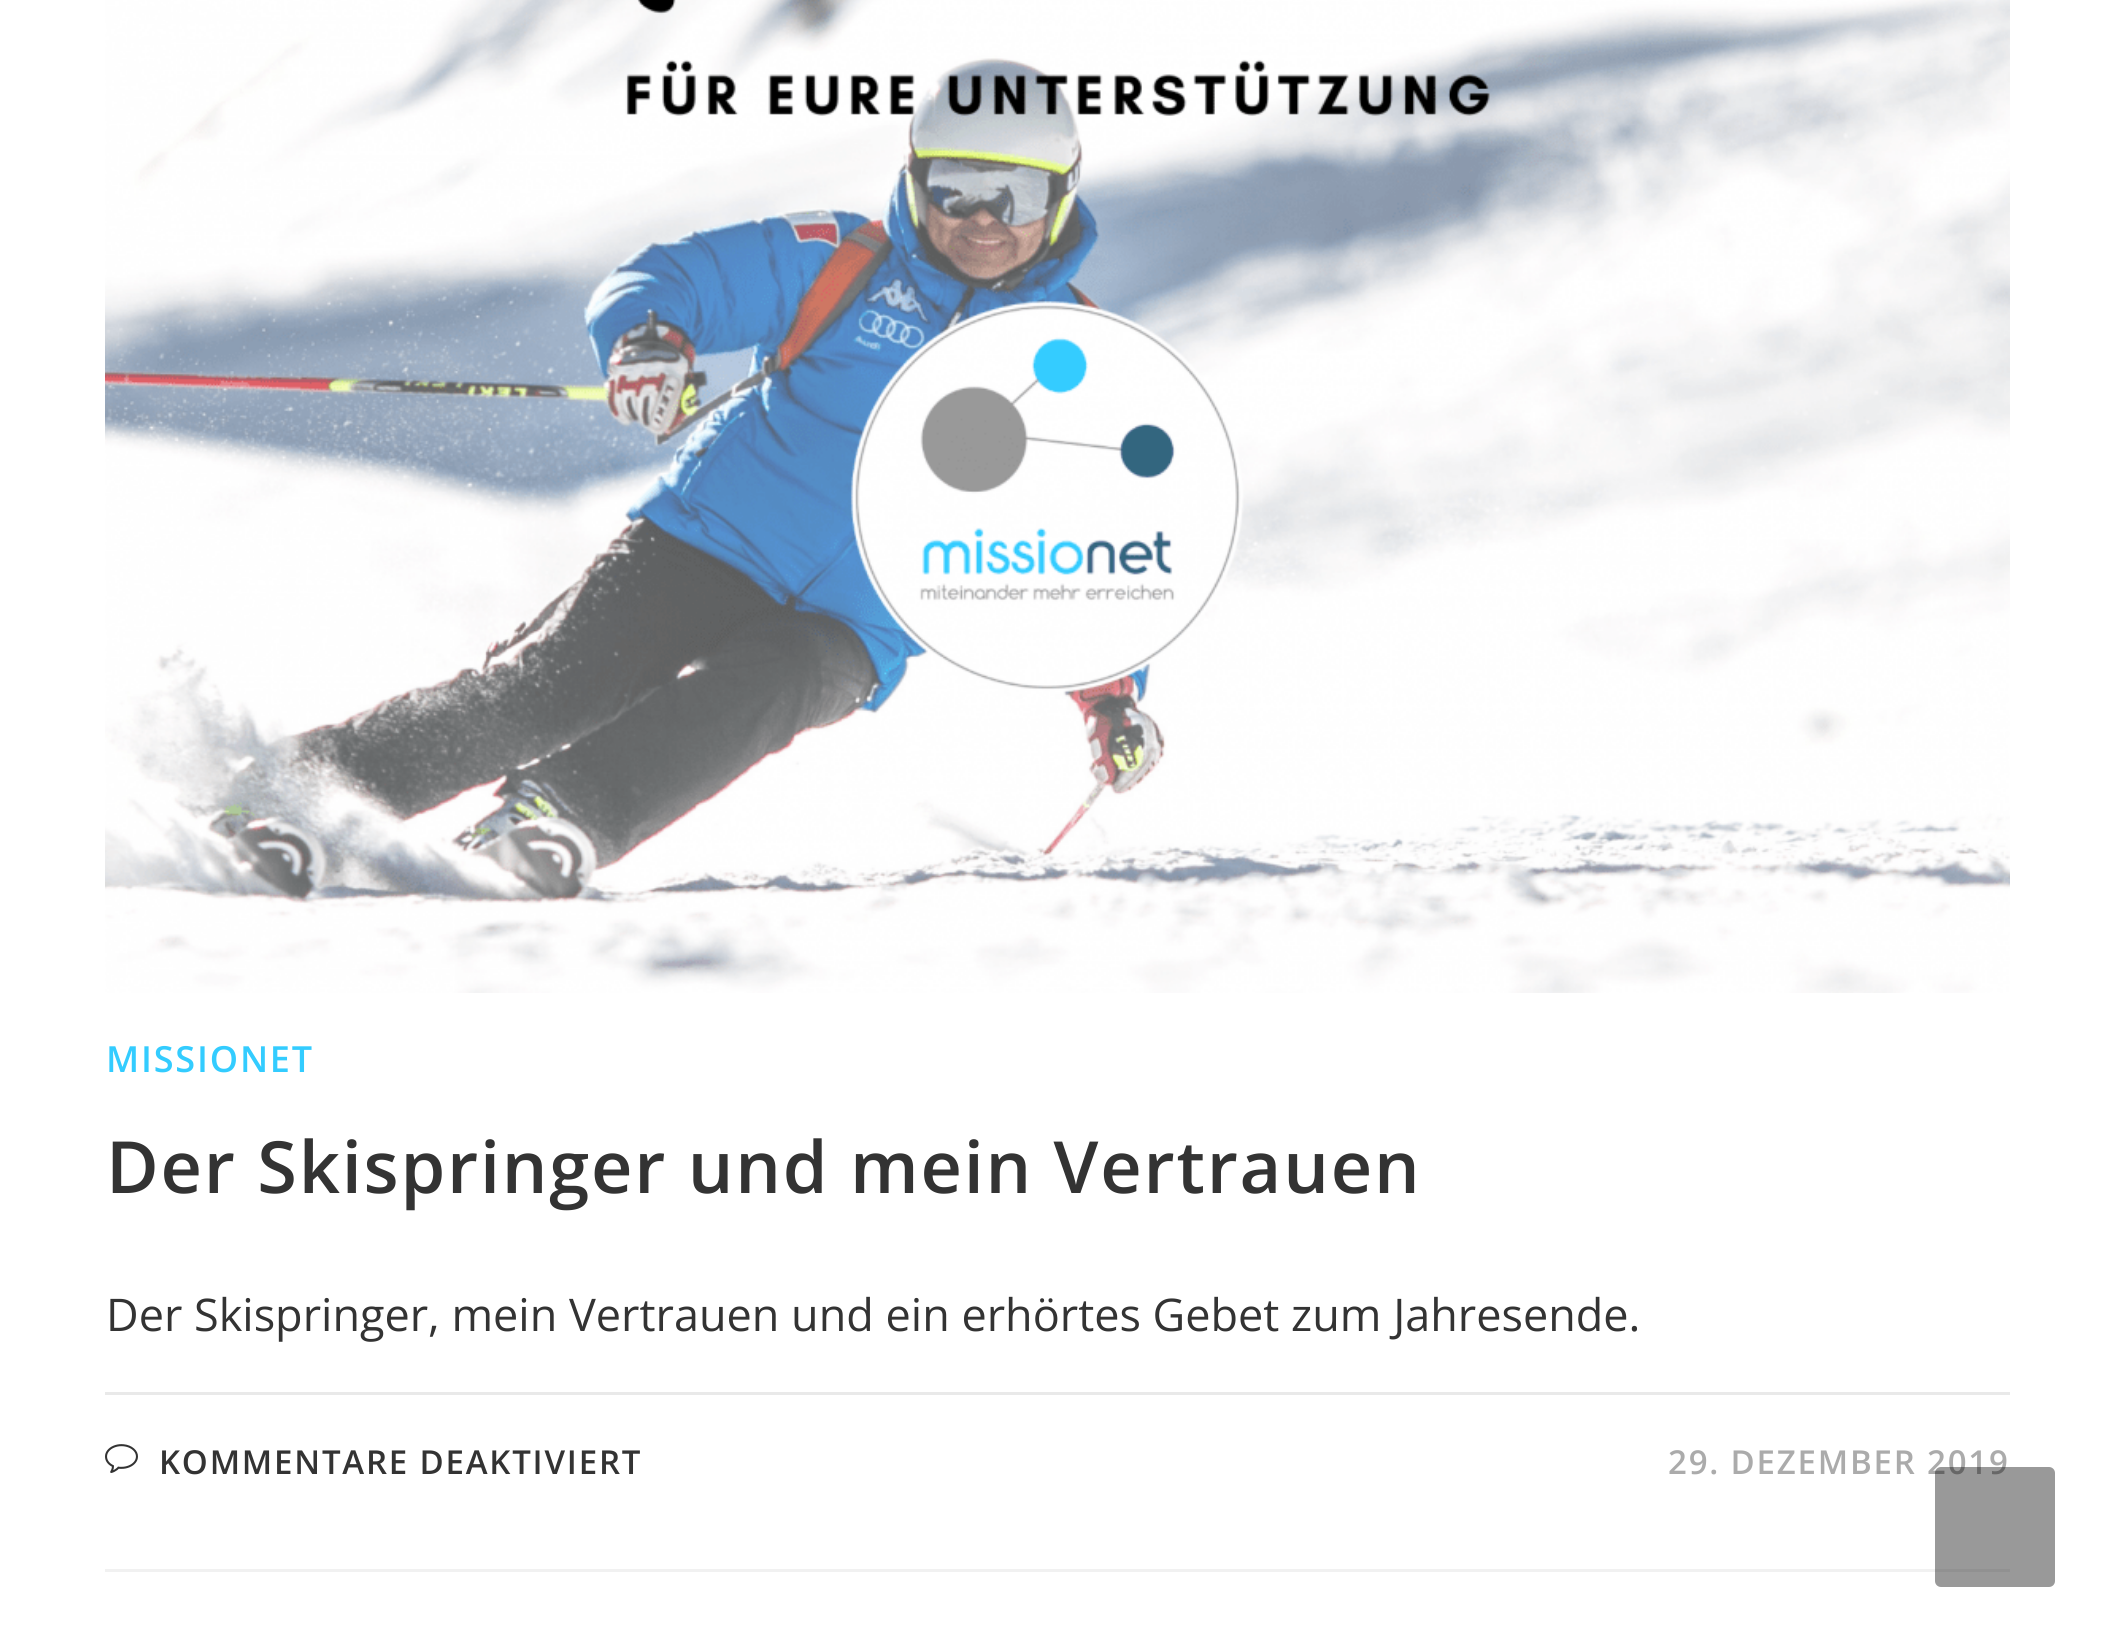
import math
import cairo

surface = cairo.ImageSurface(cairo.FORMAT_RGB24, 2115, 1645)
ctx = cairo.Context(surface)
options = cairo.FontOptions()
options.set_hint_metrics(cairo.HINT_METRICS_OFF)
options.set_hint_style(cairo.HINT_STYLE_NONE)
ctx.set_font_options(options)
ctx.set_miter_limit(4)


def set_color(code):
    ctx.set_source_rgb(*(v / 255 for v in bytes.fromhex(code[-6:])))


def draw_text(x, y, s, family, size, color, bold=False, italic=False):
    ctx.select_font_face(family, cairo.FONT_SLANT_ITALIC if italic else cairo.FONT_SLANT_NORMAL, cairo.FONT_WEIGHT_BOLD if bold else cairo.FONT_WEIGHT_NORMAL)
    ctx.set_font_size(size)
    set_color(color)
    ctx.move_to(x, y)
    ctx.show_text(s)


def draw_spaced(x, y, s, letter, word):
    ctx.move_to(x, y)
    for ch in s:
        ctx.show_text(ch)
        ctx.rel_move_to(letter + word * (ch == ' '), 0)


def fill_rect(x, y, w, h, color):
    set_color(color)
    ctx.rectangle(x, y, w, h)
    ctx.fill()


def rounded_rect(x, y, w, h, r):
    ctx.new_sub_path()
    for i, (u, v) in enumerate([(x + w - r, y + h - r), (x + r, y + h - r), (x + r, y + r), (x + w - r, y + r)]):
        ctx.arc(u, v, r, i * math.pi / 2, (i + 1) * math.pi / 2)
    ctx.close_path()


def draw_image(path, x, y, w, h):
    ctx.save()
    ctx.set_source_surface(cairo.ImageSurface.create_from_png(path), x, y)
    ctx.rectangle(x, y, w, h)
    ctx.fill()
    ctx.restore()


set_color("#ffffff")
ctx.paint()
fill_rect(105, 1569, 1905, 3, "#f1f1f1")
draw_image("assets/img1.png", 105, 0, 1905, 993)
ctx.select_font_face("Open Sans SemiBold")
ctx.set_font_size(36)
set_color("#33ccff")
draw_spaced(106, 1072, "MISSIONET", 1.8, 0)
ctx.set_font_size(72)
set_color("#333333")
draw_spaced(106, 1193, "Der Skispringer und mein Vertrauen", 1.8, 0)
draw_text(106, 1331, "Der Skispringer, mein Vertrauen und ein erhörtes Gebet zum Jahresende.", "Open Sans", 45, "#333333")
fill_rect(105, 1392, 1905, 3, "#e9e9e9")
draw_image("assets/img2.png", 105, 1444, 33, 29)
ctx.select_font_face("Open Sans SemiBold")
ctx.set_font_size(33)
set_color("#333333")
draw_spaced(159, 1474, "KOMMENTARE DEAKTIVIERT", 1.8, 0)
set_color("#ababab")
draw_spaced(1668, 1474, "29. DEZEMBER 2019", 1.8, 0)
ctx.set_source_rgba(0, 0, 0, 0.4)
rounded_rect(1935, 1467, 120, 120, 6)
ctx.fill()
surface.write_to_png("output.png")
